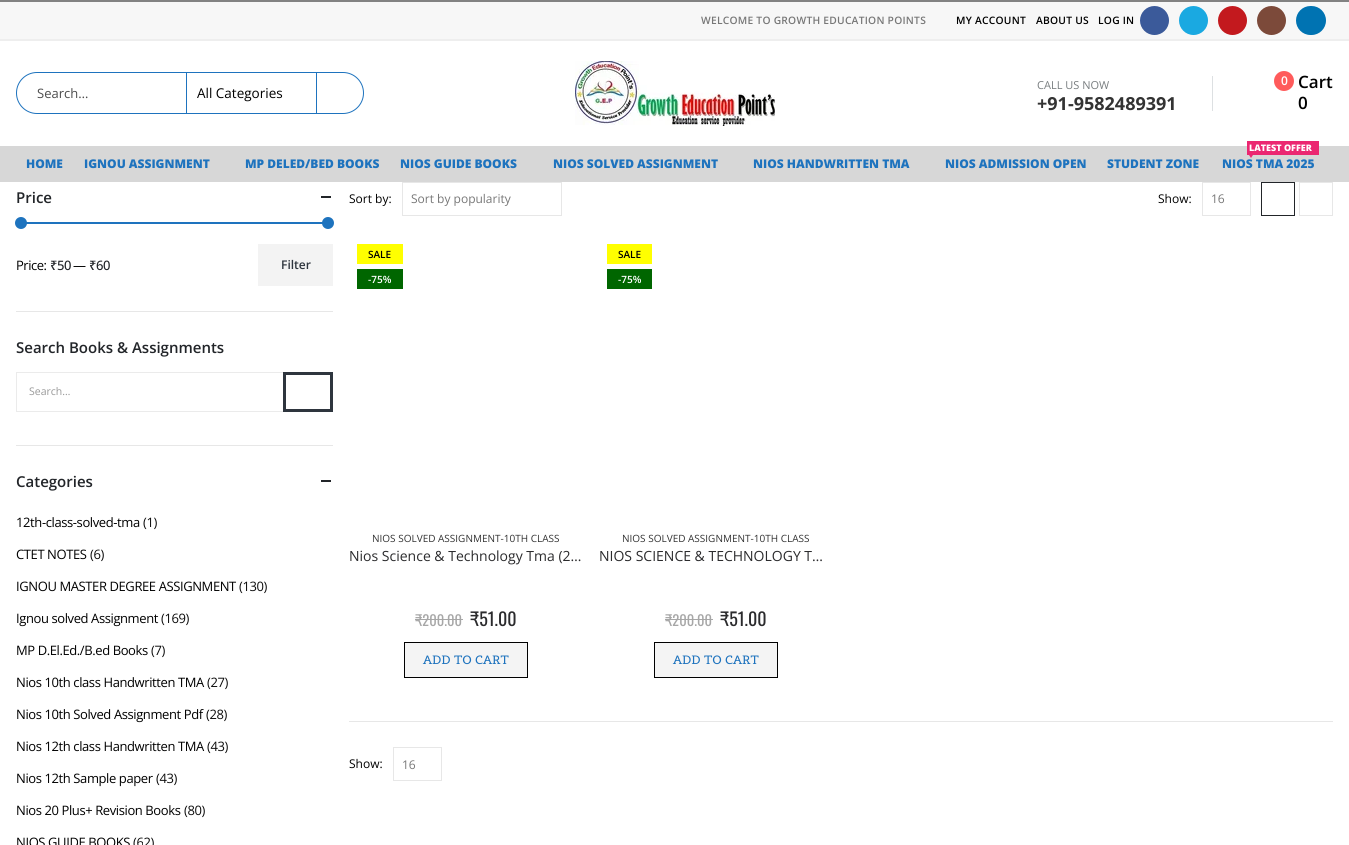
import math
import cairo

surface = cairo.ImageSurface(cairo.FORMAT_RGB24, 1349, 845)
ctx = cairo.Context(surface)
options = cairo.FontOptions()
options.set_hint_metrics(cairo.HINT_METRICS_OFF)
options.set_hint_style(cairo.HINT_STYLE_NONE)
ctx.set_font_options(options)
ctx.set_miter_limit(4)


def set_color(code):
    ctx.set_source_rgb(*(v / 255 for v in bytes.fromhex(code[-6:])))


def draw_text(x, y, s, family, size, color, bold=False, italic=False):
    ctx.select_font_face(family, cairo.FONT_SLANT_ITALIC if italic else cairo.FONT_SLANT_NORMAL, cairo.FONT_WEIGHT_BOLD if bold else cairo.FONT_WEIGHT_NORMAL)
    ctx.set_font_size(size)
    set_color(color)
    ctx.move_to(x, y)
    ctx.show_text(s)


def draw_spaced(x, y, s, letter, word):
    ctx.move_to(x, y)
    for ch in s:
        ctx.show_text(ch)
        ctx.rel_move_to(letter + word * (ch == ' '), 0)


def fill_rect(x, y, w, h, color):
    set_color(color)
    ctx.rectangle(x, y, w, h)
    ctx.fill()


def rounded_rect(x, y, w, h, r):
    ctx.new_sub_path()
    for i, (u, v) in enumerate([(x + w - r, y + h - r), (x + r, y + h - r), (x + r, y + r), (x + w - r, y + r)]):
        ctx.arc(u, v, r, i * math.pi / 2, (i + 1) * math.pi / 2)
    ctx.close_path()


def draw_image(path, x, y, w, h):
    ctx.save()
    ctx.set_source_surface(cairo.ImageSurface.create_from_png(path), x, y)
    ctx.rectangle(x, y, w, h)
    ctx.fill()
    ctx.restore()


set_color("#ffffff")
ctx.paint()
fill_rect(0, 0, 1349, 2, "#828282")
fill_rect(0, 2, 1349, 37, "#f7f7f7")
fill_rect(0, 39, 1349, 2, "#eeeeee")
ctx.select_font_face("Open Sans SemiBold")
ctx.set_font_size(10.25)
set_color("#777777")
draw_spaced(701, 24, "WELCOME TO GROWTH EDUCATION POINTS", 0.25, 0)
set_color("#000000")
draw_spaced(956, 24, "MY ACCOUNT", 0.25, 0)
draw_spaced(1036, 24, "ABOUT US", 0.25, 0)
draw_spaced(1098, 24, "LOG IN", 0.25, 0)
set_color("#3b5a9a")
ctx.new_path()
ctx.arc(1154.5, 20.5, 14.5, 0, 2 * math.pi)
ctx.fill()
set_color("#1aa9e1")
ctx.arc(1193.5, 20.5, 14.5, 0, 2 * math.pi)
ctx.fill()
set_color("#c3191e")
ctx.arc(1232.5, 20.5, 14.5, 0, 2 * math.pi)
ctx.fill()
set_color("#7c4a3a")
ctx.arc(1271.5, 20.5, 14.5, 0, 2 * math.pi)
ctx.fill()
set_color("#0073b2")
rounded_rect(1296, 6, 30, 29, 14.5)
ctx.fill()
rounded_rect(16.5, 72.5, 347, 41, 20.5)
set_color("#1e73be")
ctx.set_line_width(1)
ctx.stroke()
fill_rect(186, 73, 1, 40, "#1e73be")
draw_text(37, 98, "Search…", "Open Sans", 13, "#4d4d4d")
fill_rect(316, 73, 1, 40, "#1e73be")
draw_text(197, 98, "All Categories", "Open Sans", 13.5, "#000000")
draw_image("assets/img1.png", 575, 61, 200, 65)
fill_rect(1212, 76, 1, 35, "#dde0e2")
draw_text(1037, 89, "CALL US NOW", "Open Sans", 11, "#787d7f")
draw_text(1037, 110, "+91-9582489391", "Open Sans", 18, "#333333", bold=True)
set_color("#ff5b5b")
ctx.new_path()
ctx.arc(1284, 81, 10, 0, 2 * math.pi)
ctx.fill()
draw_text(1281, 85, "0", "Open Sans SemiBold", 12, "#ffffff")
draw_text(1298, 88, "Cart", "Open Sans SemiBold", 17, "#000000")
draw_text(1298, 109, "0", "Open Sans SemiBold", 17, "#000000")
fill_rect(0, 146, 1349, 36, "#d7d7d7")
draw_text(26, 168, "HOME", "Open Sans ExtraBold", 12, "#1e73be")
draw_text(84, 168, "IGNOU ASSIGNMENT", "Open Sans ExtraBold", 12, "#1e73be")
draw_text(245, 168, "MP DELED/BED BOOKS", "Open Sans ExtraBold", 12, "#1e73be")
draw_text(400, 168, "NIOS GUIDE BOOKS", "Open Sans ExtraBold", 12, "#1e73be")
draw_text(553, 168, "NIOS SOLVED ASSIGNMENT", "Open Sans ExtraBold", 12, "#1e73be")
draw_text(753, 168, "NIOS HANDWRITTEN TMA", "Open Sans ExtraBold", 12, "#1e73be")
draw_text(945, 168, "NIOS ADMISSION OPEN", "Open Sans ExtraBold", 12, "#1e73be")
draw_text(1107, 168, "STUDENT ZONE", "Open Sans ExtraBold", 12, "#1e73be")
fill_rect(1247, 141, 72, 14, "#eb2771")
draw_text(1249, 151, "LATEST OFFER", "Open Sans ExtraBold", 9, "#ffffff")
set_color("#eb2771")
ctx.new_path()
ctx.move_to(1249, 155)
ctx.line_to(1253, 155)
ctx.line_to(1251, 158)
ctx.close_path()
ctx.fill()
draw_text(1222, 168, "NIOS TMA 2025", "Open Sans ExtraBold", 12, "#1e73be")
fill_rect(16, 311, 317, 1, "#e7e7e7")
draw_text(16, 203, "Price", "Open Sans SemiBold", 15, "#222529")
fill_rect(321, 196, 10, 2, "#222529")
fill_rect(21, 222, 307, 2, "#1e73be")
ctx.new_path()
ctx.arc(21, 223, 6, 0, 2 * math.pi)
ctx.fill()
ctx.arc(328, 223, 6, 0, 2 * math.pi)
ctx.fill()
ctx.select_font_face("Open Sans")
ctx.set_font_size(13)
set_color("#000000")
draw_spaced(16, 270, "Price:", -0.5, 0)
ctx.select_font_face("Noto Sans Medium")
set_color("#222529")
draw_spaced(50, 270, "₹", -0.5, 0)
ctx.select_font_face("Open Sans Medium")
draw_spaced(57, 270, "50", -0.5, 0)
ctx.select_font_face("Open Sans")
set_color("#000000")
draw_spaced(73, 270, "—", -0.5, 0)
ctx.select_font_face("Noto Sans Medium")
set_color("#222529")
draw_spaced(89, 270, "₹", -0.5, 0)
ctx.select_font_face("Open Sans Medium")
draw_spaced(96, 270, "60", -0.5, 0)
fill_rect(258, 244, 75, 42, "#f3f3f3")
draw_text(281, 269, "Filter", "Open Sans SemiBold", 12, "#2e353e")
fill_rect(16, 445, 317, 1, "#e7e7e7")
draw_text(16, 353, "Search Books & Assignments", "Open Sans SemiBold", 15, "#222529")
ctx.rectangle(16.5, 372.5, 267, 39)
set_color("#ebebeb")
ctx.stroke()
draw_text(29, 395, "Search…", "Open Sans", 10.5, "#999999")
ctx.rectangle(284.5, 373.5, 47, 37)
set_color("#2e353e")
ctx.set_line_width(3)
ctx.stroke()
draw_text(16, 487, "Categories", "Open Sans SemiBold", 15, "#222529")
fill_rect(321, 480, 10, 2, "#222529")
ctx.select_font_face("Open Sans")
ctx.set_font_size(13)
set_color("#000000")
draw_spaced(16, 527, "12th-class-solved-tma", -0.4, 0)
set_color("#0d0d0d")
draw_spaced(143, 527, "(1)", -0.4, 0)
set_color("#000000")
draw_spaced(16, 559, "CTET NOTES", -0.4, 0)
set_color("#0d0d0d")
draw_spaced(90, 559, "(6)", -0.4, 0)
set_color("#000000")
draw_spaced(16, 591, "IGNOU MASTER DEGREE ASSIGNMENT", -0.4, 0)
set_color("#0d0d0d")
draw_spaced(239, 591, "(130)", -0.4, 0)
set_color("#000000")
draw_spaced(16, 623, "Ignou solved Assignment", -0.4, 0)
set_color("#0d0d0d")
draw_spaced(161, 623, "(169)", -0.4, 0)
set_color("#000000")
draw_spaced(16, 655, "MP D.El.Ed./B.ed Books", -0.4, 0)
set_color("#0d0d0d")
draw_spaced(151, 655, "(7)", -0.4, 0)
set_color("#000000")
draw_spaced(16, 687, "Nios 10th class Handwritten TMA", -0.4, 0)
set_color("#0d0d0d")
draw_spaced(207, 687, "(27)", -0.4, 0)
set_color("#000000")
draw_spaced(16, 719, "Nios 10th Solved Assignment Pdf", -0.4, 0)
set_color("#0d0d0d")
draw_spaced(206, 719, "(28)", -0.4, 0)
set_color("#000000")
draw_spaced(16, 751, "Nios 12th class Handwritten TMA", -0.4, 0)
set_color("#0d0d0d")
draw_spaced(207, 751, "(43)", -0.4, 0)
set_color("#000000")
draw_spaced(16, 783, "Nios 12th Sample paper", -0.4, 0)
set_color("#0d0d0d")
draw_spaced(156, 783, "(43)", -0.4, 0)
set_color("#000000")
draw_spaced(16, 815, "Nios 20 Plus+ Revision Books", -0.4, 0)
set_color("#0d0d0d")
draw_spaced(184, 815, "(80)", -0.4, 0)
set_color("#000000")
draw_spaced(16, 847, "NIOS GUIDE BOOKS", -0.4, 0)
set_color("#0d0d0d")
draw_spaced(133, 847, "(62)", -0.4, 0)
draw_text(349, 203, "Sort by:", "Open Sans", 12, "#000000")
ctx.rectangle(402.5, 182.5, 159, 33)
set_color("#e7e7e7")
ctx.set_line_width(1)
ctx.stroke()
draw_text(411, 203, "Sort by popularity", "Open Sans", 12, "#777777")
draw_text(1158, 203, "Show:", "Open Sans", 12, "#000000")
ctx.rectangle(1202.5, 182.5, 48, 33)
set_color("#e7e7e7")
ctx.stroke()
draw_text(1211, 203, "16", "Open Sans", 12, "#777777")
ctx.rectangle(1261.5, 182.5, 33, 33)
set_color("#222529")
ctx.stroke()
ctx.rectangle(1299.5, 182.5, 33, 33)
set_color("#e7e7e7")
ctx.stroke()
fill_rect(357, 244, 46, 20, "#ffff00")
draw_text(368, 258, "SALE", "Open Sans SemiBold", 10, "#000000")
fill_rect(357, 269, 46, 20, "#006600")
draw_text(368, 283, "-75%", "Open Sans SemiBold", 10, "#ffffff")
draw_text(372, 542, "NIOS SOLVED ASSIGNMENT-10TH CLASS", "Open Sans", 10, "#333333")
draw_text(349, 561, "Nios Science & Technology Tma (2…", "Open Sans", 14, "#2b2b2d")
draw_text(415, 626, "₹200.00", "Oswald", 14.5, "#a7a7a7")
fill_rect(415, 619, 48, 1, "#a7a7a7")
draw_text(470, 626, "₹51.00", "Oswald", 18, "#2b2b2d")
set_color("#f4f4f4")
ctx.rectangle(404.5, 642.5, 123, 35)
ctx.fill_preserve()
set_color("#000000")
ctx.stroke()
draw_text(423, 664, "ADD TO CART", "Belgrano", 12, "#1e73be")
fill_rect(607, 244, 45, 20, "#ffff00")
draw_text(618, 258, "SALE", "Open Sans SemiBold", 10, "#000000")
fill_rect(607, 269, 45, 20, "#006600")
draw_text(618, 283, "-75%", "Open Sans SemiBold", 10, "#ffffff")
draw_text(622, 542, "NIOS SOLVED ASSIGNMENT-10TH CLASS", "Open Sans", 10, "#333333")
draw_text(599, 561, "NIOS SCIENCE & TECHNOLOGY T…", "Open Sans", 14, "#2b2b2d")
draw_text(665, 626, "₹200.00", "Oswald", 14.5, "#a7a7a7")
fill_rect(665, 619, 48, 1, "#a7a7a7")
draw_text(720, 626, "₹51.00", "Oswald", 18, "#2b2b2d")
set_color("#f4f4f4")
ctx.rectangle(654.5, 642.5, 123, 35)
ctx.fill_preserve()
set_color("#000000")
ctx.stroke()
draw_text(673, 664, "ADD TO CART", "Belgrano", 12, "#1e73be")
fill_rect(349, 721, 984, 1, "#e7e7e7")
draw_text(349, 768, "Show:", "Open Sans", 12, "#000000")
ctx.rectangle(393.5, 747.5, 48, 33)
set_color("#e7e7e7")
ctx.stroke()
draw_text(402, 769, "16", "Open Sans", 12, "#777777")
surface.write_to_png("output.png")
